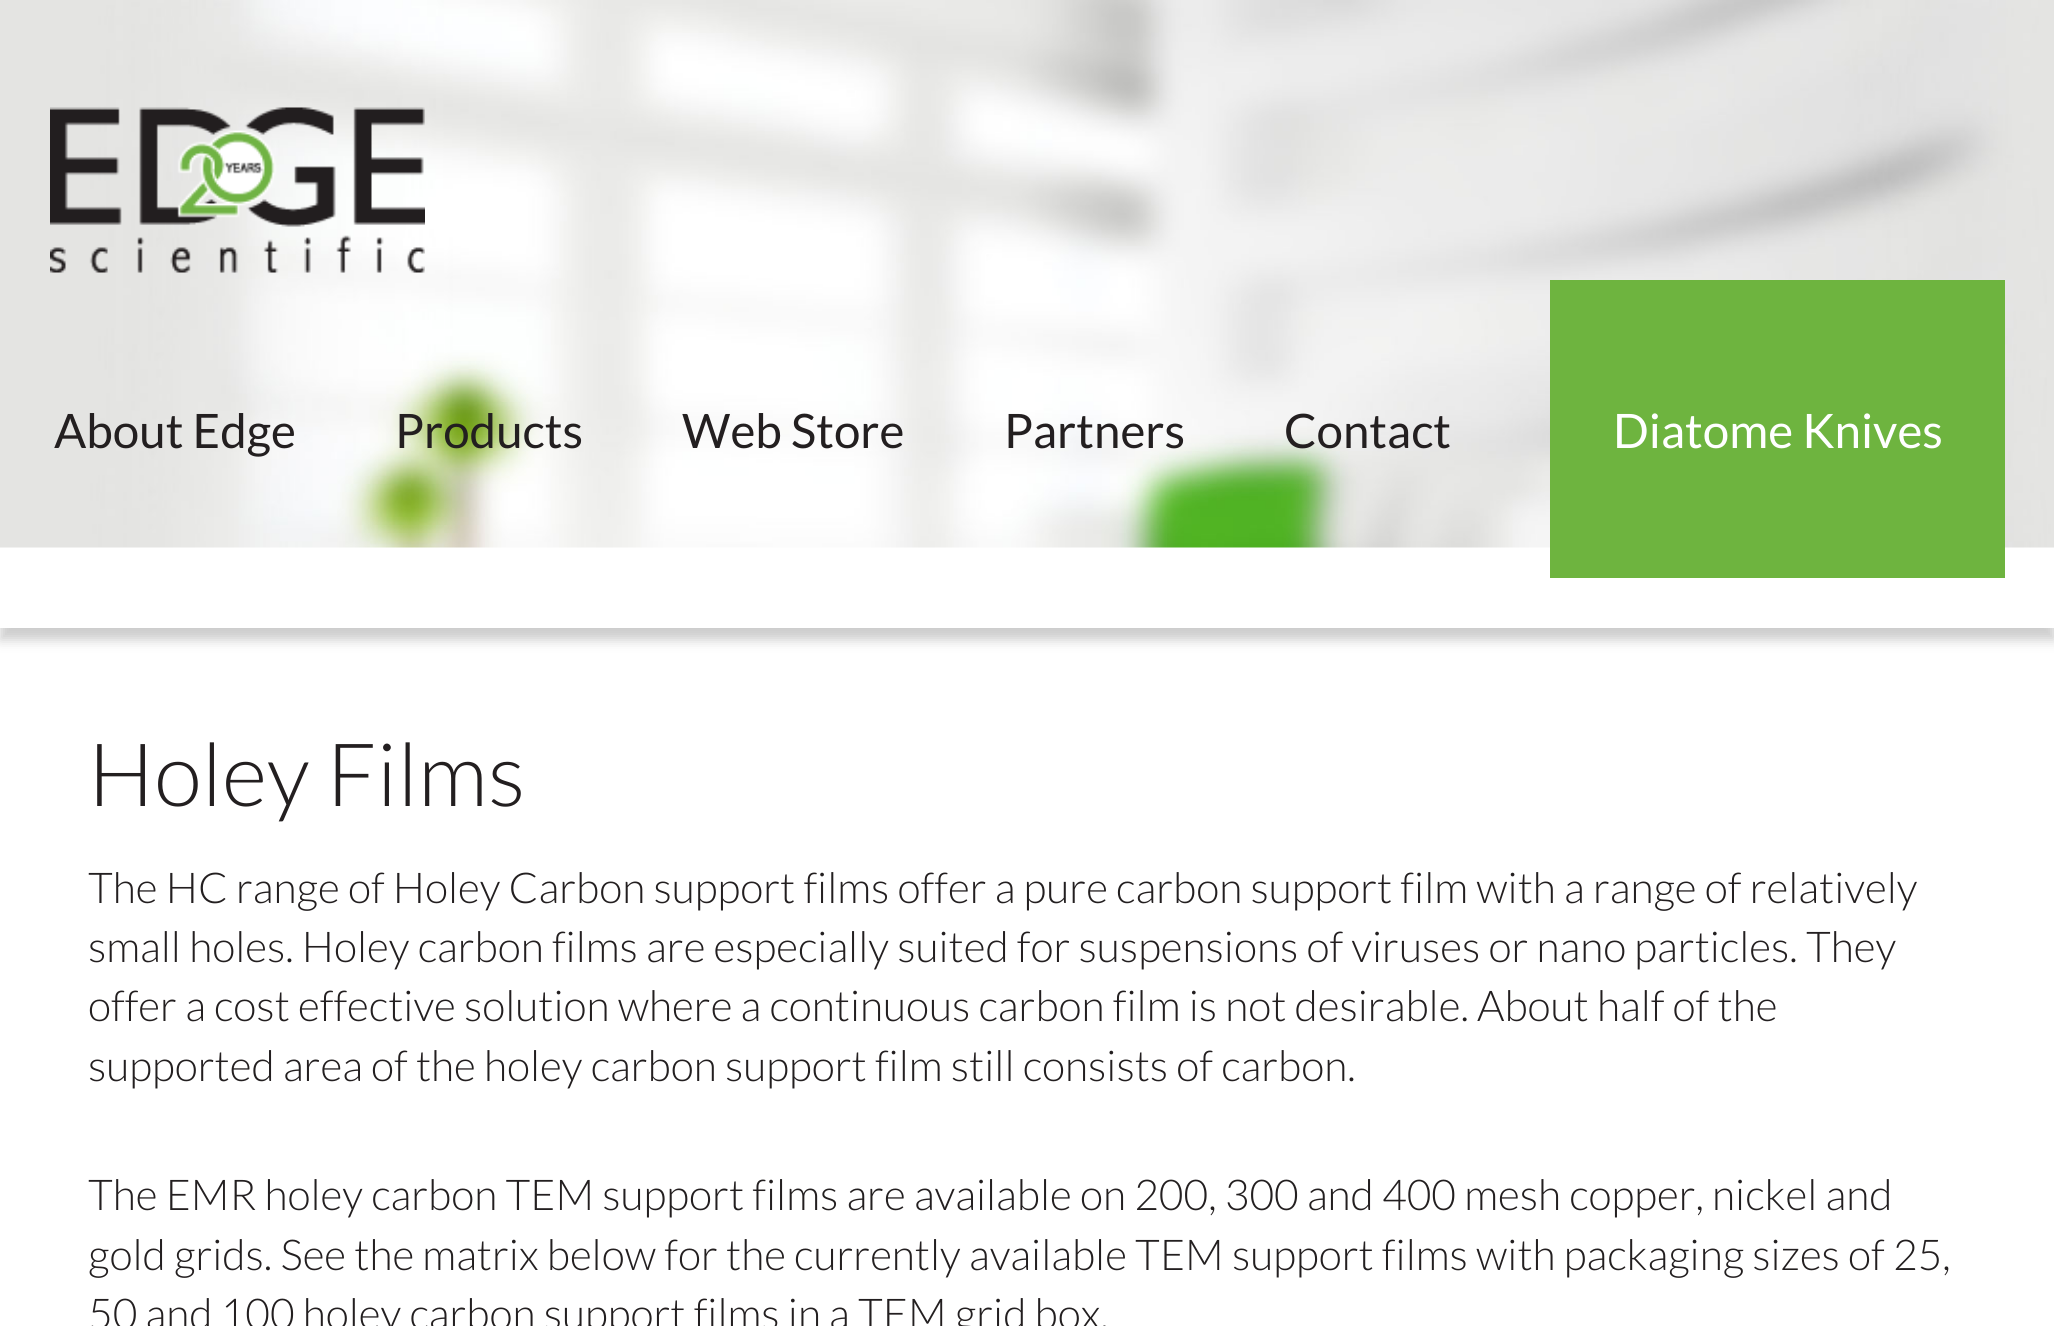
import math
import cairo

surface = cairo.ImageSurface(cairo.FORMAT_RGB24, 2054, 1326)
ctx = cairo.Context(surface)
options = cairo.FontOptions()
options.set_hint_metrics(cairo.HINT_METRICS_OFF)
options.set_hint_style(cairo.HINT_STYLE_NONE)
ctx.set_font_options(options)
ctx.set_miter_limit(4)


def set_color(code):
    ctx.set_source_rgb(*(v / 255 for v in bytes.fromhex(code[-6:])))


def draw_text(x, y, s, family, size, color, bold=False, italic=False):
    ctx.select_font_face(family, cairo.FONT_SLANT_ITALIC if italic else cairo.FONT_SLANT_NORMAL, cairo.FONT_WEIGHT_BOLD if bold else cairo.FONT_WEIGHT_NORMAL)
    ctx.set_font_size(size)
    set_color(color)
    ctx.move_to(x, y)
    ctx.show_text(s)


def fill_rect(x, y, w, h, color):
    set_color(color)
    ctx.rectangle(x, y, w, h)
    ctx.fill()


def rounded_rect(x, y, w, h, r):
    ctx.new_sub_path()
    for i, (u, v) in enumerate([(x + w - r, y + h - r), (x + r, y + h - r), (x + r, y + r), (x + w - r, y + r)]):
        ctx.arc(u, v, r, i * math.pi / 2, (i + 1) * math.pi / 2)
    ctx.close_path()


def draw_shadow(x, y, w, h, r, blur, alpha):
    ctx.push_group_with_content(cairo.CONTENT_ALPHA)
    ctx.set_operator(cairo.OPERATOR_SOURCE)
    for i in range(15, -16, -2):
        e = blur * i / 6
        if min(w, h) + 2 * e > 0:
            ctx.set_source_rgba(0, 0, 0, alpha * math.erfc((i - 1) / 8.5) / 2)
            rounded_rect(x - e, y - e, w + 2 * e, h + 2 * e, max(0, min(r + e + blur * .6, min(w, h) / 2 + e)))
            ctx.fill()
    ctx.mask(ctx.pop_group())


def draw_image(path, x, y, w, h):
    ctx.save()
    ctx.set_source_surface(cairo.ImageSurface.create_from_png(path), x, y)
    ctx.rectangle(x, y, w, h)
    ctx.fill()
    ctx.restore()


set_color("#ffffff")
ctx.paint()
ctx.save()
ctx.set_fill_rule(cairo.FILL_RULE_EVEN_ODD)
ctx.new_path()
ctx.move_to(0, 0)
ctx.line_to(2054, 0)
ctx.line_to(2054, 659)
ctx.line_to(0, 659)
ctx.close_path()
ctx.move_to(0, 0)
ctx.line_to(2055, 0)
ctx.line_to(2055, 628)
ctx.line_to(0, 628)
ctx.close_path()
ctx.clip()
set_color("#000000")
draw_shadow(0, 13, 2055, 627, 0, 6, 0.2)
ctx.restore()
draw_image("assets/img1.png", 0, 0, 2054, 548)
draw_image("assets/img2.png", 50, 107, 375, 166)
draw_text(54, 448, "About Edge", "Lato", 47.5, "#231f20")
draw_text(395, 448, "Products", "Lato", 47.5, "#231f20")
draw_text(682, 448, "Web Store", "Lato", 47.5, "#231f20")
draw_text(1004, 448, "Partners", "Lato", 47.5, "#231f20")
draw_text(1284, 448, "Contact", "Lato", 47.5, "#231f20")
fill_rect(1550, 280, 455, 298, "#6eb43f")
draw_text(1613, 448, "Diatome Knives", "Lato", 47.5, "#ffffff")
draw_text(88, 806, "Holey Films", "Lato Light", 87.5, "#231f20")
draw_text(88, 903, "The HC range of Holey Carbon support films offer a pure carbon support film with a range of relatively", "Lato Light", 42.5, "#231f20")
draw_text(88, 962, "small holes. Holey carbon films are especially suited for suspensions of viruses or nano particles. They", "Lato Light", 42.5, "#231f20")
draw_text(88, 1021, "offer a cost effective solution where a continuous carbon film is not desirable. About half of the", "Lato Light", 42.5, "#231f20")
draw_text(88, 1081, "supported area of the holey carbon support film still consists of carbon.", "Lato Light", 42.5, "#231f20")
draw_text(88, 1210, "The EMR holey carbon TEM support films are available on 200, 300 and 400 mesh copper, nickel and", "Lato Light", 42.5, "#231f20")
draw_text(88, 1270, "gold grids. See the matrix below for the currently available TEM support films with packaging sizes of 25,", "Lato Light", 42.5, "#231f20")
draw_text(88, 1329, "50 and 100 holey carbon support films in a TEM grid box.", "Lato Light", 42.5, "#231f20")
surface.write_to_png("output.png")
